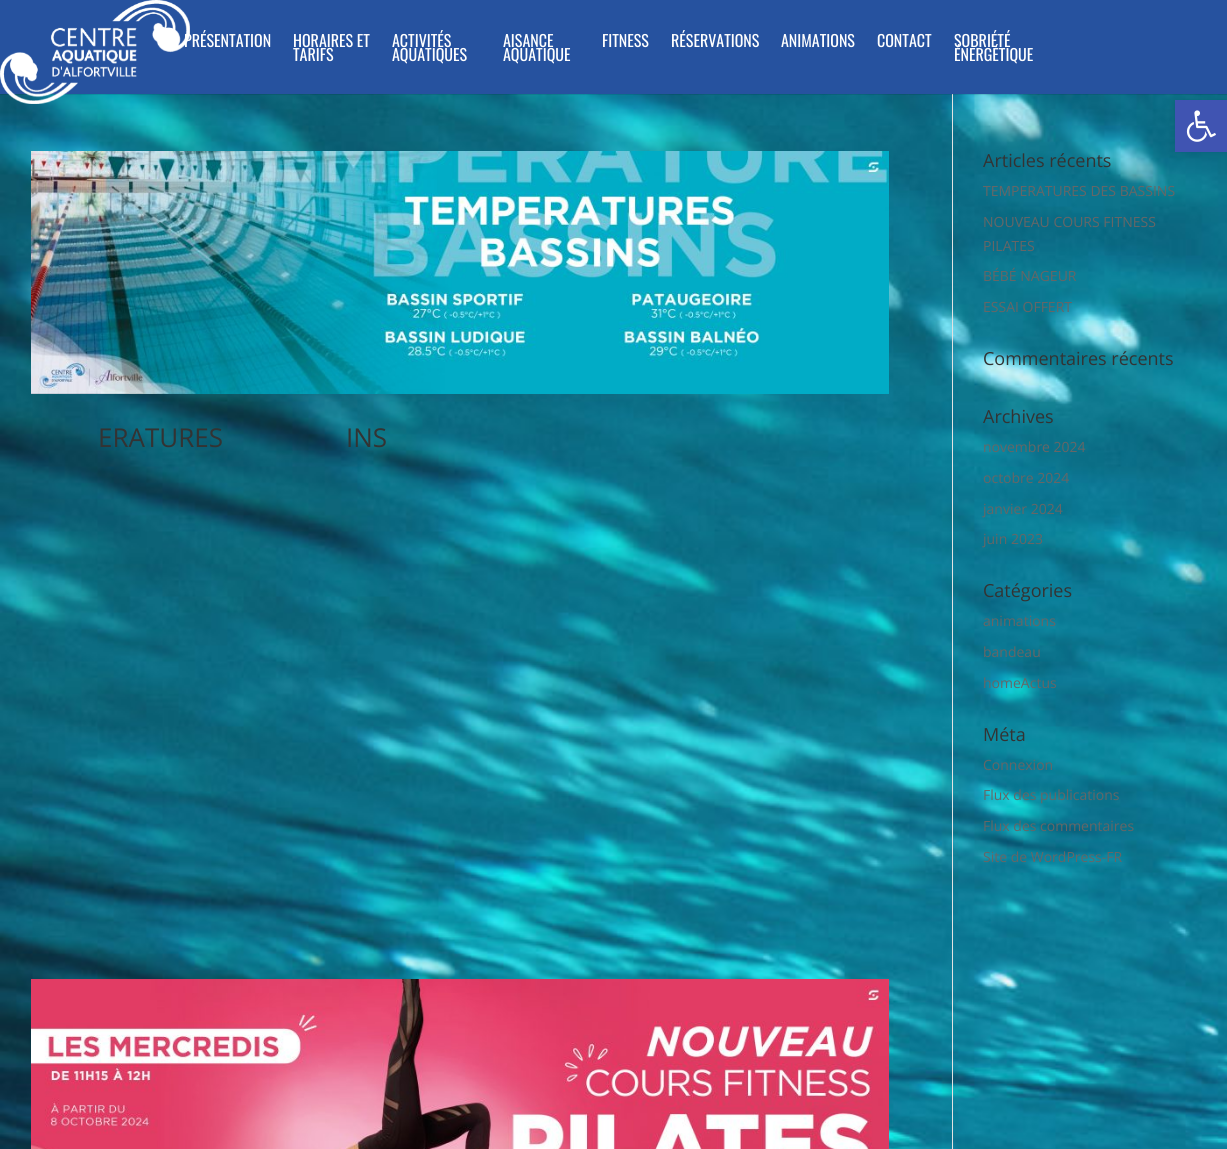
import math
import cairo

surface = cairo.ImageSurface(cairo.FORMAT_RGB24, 1227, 1149)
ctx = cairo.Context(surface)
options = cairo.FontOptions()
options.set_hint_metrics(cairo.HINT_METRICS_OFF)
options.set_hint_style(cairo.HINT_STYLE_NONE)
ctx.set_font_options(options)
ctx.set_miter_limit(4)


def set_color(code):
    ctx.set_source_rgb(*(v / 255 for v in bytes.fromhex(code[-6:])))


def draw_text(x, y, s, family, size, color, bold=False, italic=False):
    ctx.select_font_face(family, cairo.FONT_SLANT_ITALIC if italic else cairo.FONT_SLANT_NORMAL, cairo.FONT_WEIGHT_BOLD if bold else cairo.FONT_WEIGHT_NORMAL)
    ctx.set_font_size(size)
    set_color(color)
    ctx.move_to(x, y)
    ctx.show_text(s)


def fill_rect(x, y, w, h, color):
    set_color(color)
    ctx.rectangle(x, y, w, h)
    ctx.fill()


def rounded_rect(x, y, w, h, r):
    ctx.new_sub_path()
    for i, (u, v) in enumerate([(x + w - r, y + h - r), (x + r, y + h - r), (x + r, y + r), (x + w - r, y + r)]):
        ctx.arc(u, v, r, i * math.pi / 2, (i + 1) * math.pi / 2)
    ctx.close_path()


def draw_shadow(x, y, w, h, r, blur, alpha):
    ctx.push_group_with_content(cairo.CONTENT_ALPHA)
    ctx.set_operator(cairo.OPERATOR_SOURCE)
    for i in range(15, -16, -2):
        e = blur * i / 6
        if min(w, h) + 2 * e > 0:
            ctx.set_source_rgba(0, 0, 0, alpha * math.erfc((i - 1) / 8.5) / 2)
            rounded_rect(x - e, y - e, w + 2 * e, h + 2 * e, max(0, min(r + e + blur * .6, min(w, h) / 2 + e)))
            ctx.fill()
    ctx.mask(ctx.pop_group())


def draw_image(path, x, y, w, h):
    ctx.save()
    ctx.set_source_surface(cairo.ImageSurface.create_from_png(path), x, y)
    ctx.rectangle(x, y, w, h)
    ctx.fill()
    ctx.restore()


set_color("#ffffff")
ctx.paint()
draw_image("assets/img2.png", 0, 94, 1227, 1055)
fill_rect(952, 93, 1, 1056, "#e2e2e2")
set_color("#000000")
draw_shadow(1175, 100, 52, 52, 0, 5, 0.1)
ctx.set_source_rgba(0, 0, 0, 0.1)
ctx.rectangle(0, 94, 1227, 1)
ctx.fill()
fill_rect(0, 0, 1227, 94, "#26529f")
draw_image("assets/img1.png", 0, 0, 190, 104)
draw_text(184, 47, "PRÉSENTATION", "Oswald", 16, "#ffffff")
draw_text(293, 47, "HORAIRES ET", "Oswald", 16, "#ffffff")
draw_text(293, 61, "TARIFS", "Oswald", 16, "#ffffff")
draw_text(392, 47, "ACTIVITÉS", "Oswald", 16, "#ffffff")
draw_text(392, 61, "AQUATIQUES", "Oswald", 16, "#ffffff")
draw_text(503, 47, "AISANCE", "Oswald", 16, "#ffffff")
draw_text(503, 61, "AQUATIQUE", "Oswald", 16, "#ffffff")
draw_text(602, 47, "FITNESS", "Oswald", 16, "#ffffff")
draw_text(671, 47, "RÉSERVATIONS", "Oswald", 16, "#ffffff")
draw_text(781, 47, "ANIMATIONS", "Oswald", 16, "#ffffff")
draw_text(877, 47, "CONTACT", "Oswald", 16, "#ffffff")
draw_text(954, 47, "SOBRIÉTÉ", "Oswald", 16, "#ffffff")
draw_text(954, 61, "ÉNERGÉTIQUE", "Oswald", 16, "#ffffff")
draw_image("assets/img3.png", 31, 151, 858, 243)
draw_text(98, 447, "ERATURES", "Open Sans", 26, "#333333")
draw_text(346, 447, "INS", "Open Sans", 26, "#333333")
draw_image("assets/img4.png", 31, 979, 858, 170)
draw_text(983, 167, "Articles récents", "Open Sans", 18, "#333333")
draw_text(983, 196, "TEMPERATURES DES BASSINS", "Open Sans", 14, "#666666")
draw_text(983, 227, "NOUVEAU COURS FITNESS", "Open Sans", 14, "#666666")
draw_text(983, 251, "PILATES", "Open Sans", 14, "#666666")
draw_text(983, 281, "BÉBÉ NAGEUR", "Open Sans", 14, "#666666")
draw_text(983, 312, "ESSAI OFFERT", "Open Sans", 14, "#666666")
draw_text(983, 365, "Commentaires récents", "Open Sans", 18, "#333333")
draw_text(983, 423, "Archives", "Open Sans", 18, "#333333")
draw_text(983, 452, "novembre 2024", "Open Sans", 14, "#666666")
draw_text(983, 483, "octobre 2024", "Open Sans", 14, "#666666")
draw_text(983, 514, "janvier 2024", "Open Sans", 14, "#666666")
draw_text(983, 544, "juin 2023", "Open Sans", 14, "#666666")
draw_text(983, 597, "Catégories", "Open Sans", 18, "#333333")
draw_text(983, 626, "animations", "Open Sans", 14, "#666666")
draw_text(983, 657, "bandeau", "Open Sans", 14, "#666666")
draw_text(983, 688, "homeActus", "Open Sans", 14, "#666666")
draw_text(983, 741, "Méta", "Open Sans", 18, "#333333")
draw_text(983, 770, "Connexion", "Open Sans", 14, "#666666")
draw_text(983, 800, "Flux des publications", "Open Sans", 14, "#666666")
draw_text(983, 831, "Flux des commentaires", "Open Sans", 14, "#666666")
draw_text(983, 862, "Site de WordPress-FR", "Open Sans", 14, "#666666")
fill_rect(1175, 100, 52, 52, "#4054b2")
draw_image("assets/img5.png", 1186, 110, 30, 32)
surface.write_to_png("output.png")
